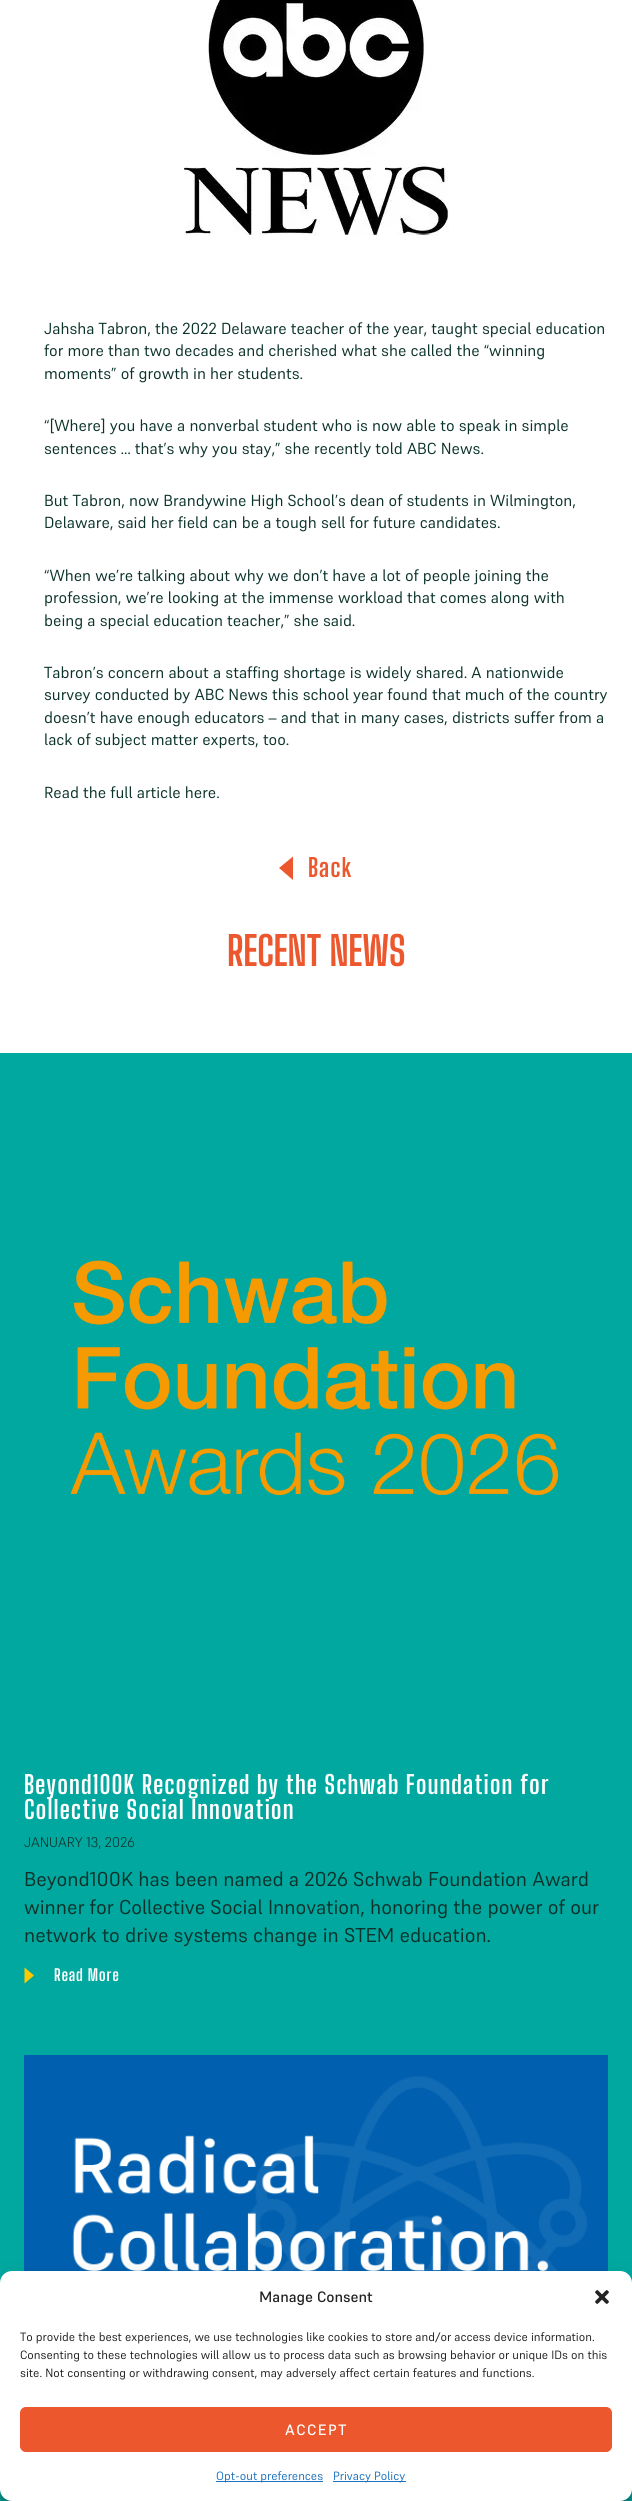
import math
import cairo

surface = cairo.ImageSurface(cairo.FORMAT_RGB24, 632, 2501)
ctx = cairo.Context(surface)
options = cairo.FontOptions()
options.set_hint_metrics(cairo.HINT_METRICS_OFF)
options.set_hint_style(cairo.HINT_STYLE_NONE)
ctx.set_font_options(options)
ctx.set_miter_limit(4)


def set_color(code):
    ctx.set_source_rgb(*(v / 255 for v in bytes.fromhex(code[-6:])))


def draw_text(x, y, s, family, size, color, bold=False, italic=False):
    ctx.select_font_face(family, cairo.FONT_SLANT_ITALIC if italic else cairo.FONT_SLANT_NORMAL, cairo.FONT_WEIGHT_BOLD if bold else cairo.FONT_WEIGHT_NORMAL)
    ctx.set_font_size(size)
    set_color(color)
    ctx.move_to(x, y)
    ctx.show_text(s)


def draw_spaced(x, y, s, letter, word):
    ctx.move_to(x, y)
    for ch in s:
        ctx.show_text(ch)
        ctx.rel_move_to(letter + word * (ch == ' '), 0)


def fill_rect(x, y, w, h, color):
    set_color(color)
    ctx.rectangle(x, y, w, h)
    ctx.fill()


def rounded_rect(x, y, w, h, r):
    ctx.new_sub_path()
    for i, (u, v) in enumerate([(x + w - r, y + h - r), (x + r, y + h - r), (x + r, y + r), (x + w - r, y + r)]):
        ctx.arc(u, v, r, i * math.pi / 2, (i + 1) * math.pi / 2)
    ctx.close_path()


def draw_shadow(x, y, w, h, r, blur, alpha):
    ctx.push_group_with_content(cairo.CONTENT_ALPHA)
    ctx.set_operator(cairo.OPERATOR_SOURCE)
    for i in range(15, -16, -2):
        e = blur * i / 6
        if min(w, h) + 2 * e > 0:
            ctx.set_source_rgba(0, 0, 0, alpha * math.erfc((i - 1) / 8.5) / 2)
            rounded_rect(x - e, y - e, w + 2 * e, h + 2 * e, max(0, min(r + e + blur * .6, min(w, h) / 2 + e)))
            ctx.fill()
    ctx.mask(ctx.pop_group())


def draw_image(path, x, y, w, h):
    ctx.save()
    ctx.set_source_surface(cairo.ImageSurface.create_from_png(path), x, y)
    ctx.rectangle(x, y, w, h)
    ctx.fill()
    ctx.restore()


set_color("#ffffff")
ctx.paint()
draw_image("assets/img1.png", 184, 0, 265, 236)
draw_text(44, 334, "Jahsha Tabron, the 2022 Delaware teacher of the year, taught special education", "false", 16, "#0c332b")
draw_text(44, 356, "for more than two decades and cherished what she called the “winning", "false", 16, "#0c332b")
draw_text(44, 379, "moments” of growth in her students.", "false", 16, "#0c332b")
draw_text(44, 431, "“[Where] you have a nonverbal student who is now able to speak in simple", "false", 16, "#0c332b")
draw_text(44, 454, "sentences … that’s why you stay,” she recently told ABC News.", "false", 16, "#0c332b")
draw_text(44, 506, "But Tabron, now Brandywine High School’s dean of students in Wilmington,", "false", 16, "#0c332b")
draw_text(44, 528, "Delaware, said her field can be a tough sell for future candidates.", "false", 16, "#0c332b")
draw_text(44, 581, "“When we’re talking about why we don’t have a lot of people joining the", "false", 16, "#0c332b")
draw_text(44, 603, "profession, we’re looking at the immense workload that comes along with", "false", 16, "#0c332b")
draw_text(44, 626, "being a special education teacher,” she said.", "false", 16, "#0c332b")
draw_text(44, 678, "Tabron’s concern about a staffing shortage is widely shared. A nationwide", "false", 16, "#0c332b")
draw_text(44, 700, "survey conducted by ABC News this school year found that much of the country", "false", 16, "#0c332b")
draw_text(44, 723, "doesn’t have enough educators – and that in many cases, districts suffer from a", "false", 16, "#0c332b")
draw_text(44, 745, "lack of subject matter experts, too.", "false", 16, "#0c332b")
draw_text(44, 798, "Read the full article here.", "false", 16, "#0c332b")
set_color("#ec572d")
ctx.new_path()
ctx.move_to(279, 868)
ctx.line_to(293, 856.5)
ctx.line_to(293, 880)
ctx.close_path()
ctx.fill()
ctx.select_font_face("Big Shoulders Display", cairo.FONT_SLANT_NORMAL, cairo.FONT_WEIGHT_BOLD)
ctx.set_font_size(25)
draw_spaced(308, 877, "Back", 1, 0)
fill_rect(0, 1053, 632, 1448, "#00a89f")
ctx.set_font_size(40)
set_color("#ec572d")
draw_spaced(227, 966, "RECENT NEWS", -0.4, 0)
draw_image("assets/img2.png", 70, 1260, 489, 235)
ctx.set_font_size(25)
set_color("#ffffff")
draw_spaced(24, 1794, "Beyond100K Recognized by the Schwab Foundation for", 1, 0)
draw_spaced(24, 1819, "Collective Social Innovation", 1, 0)
draw_text(24, 1847, "JANUARY 13, 2026", "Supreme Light", 14, "#0c332b")
draw_text(24, 1886, "Beyond100K has been named a 2026 Schwab Foundation Award", "false", 20, "#0c332b")
draw_text(24, 1914, "winner for Collective Social Innovation, honoring the power of our", "false", 20, "#0c332b")
draw_text(24, 1942, "network to drive systems change in STEM education.", "false", 20, "#0c332b")
set_color("#ffcb00")
ctx.new_path()
ctx.move_to(34, 1975.5)
ctx.line_to(24.5, 1983.5)
ctx.line_to(24.5, 1967.5)
ctx.close_path()
ctx.fill()
ctx.select_font_face("Big Shoulders Display", cairo.FONT_SLANT_NORMAL, cairo.FONT_WEIGHT_BOLD)
ctx.set_font_size(16)
set_color("#ffffff")
draw_spaced(54, 1981, "Read More", 0.75, 0)
draw_image("assets/img3.png", 24, 2055, 584, 216)
set_color("#000000")
draw_shadow(0, 2277, 632, 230, 12, 3, 0.23)
draw_shadow(0, 2281, 632, 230, 12, 10, 0.19)
set_color("#ffffff")
rounded_rect(0, 2271, 632, 230, 12)
ctx.fill()
draw_text(259, 2302, "Manage Consent", "Supreme Medium", 15, "#222222")
draw_image("assets/img4.png", 595, 2290, 14, 14)
draw_text(20, 2341, "To provide the best experiences, we use technologies like cookies to store and/or access device information.", "false", 12, "#222222")
draw_text(20, 2359, "Consenting to these technologies will allow us to process data such as browsing behavior or unique IDs on this", "false", 12, "#222222")
draw_text(20, 2377, "site. Not consenting or withdrawing consent, may adversely affect certain features and functions.", "false", 12, "#222222")
set_color("#ec572d")
rounded_rect(20.5, 2407.5, 591, 44, 5.5)
ctx.fill_preserve()
ctx.set_line_width(1)
ctx.stroke()
ctx.select_font_face("Supreme Medium")
ctx.set_font_size(15)
set_color("#ffffff")
draw_spaced(285, 2435, "ACCEPT", 1.5, 0)
fill_rect(216, 2481, 107, 1, "#1e73be")
draw_text(216, 2480, "Opt-out preferences", "false", 12, "#1e73be")
fill_rect(333, 2481, 73, 1, "#1e73be")
draw_text(333, 2480, "Privacy Policy", "false", 12, "#1e73be")
surface.write_to_png("output.png")
